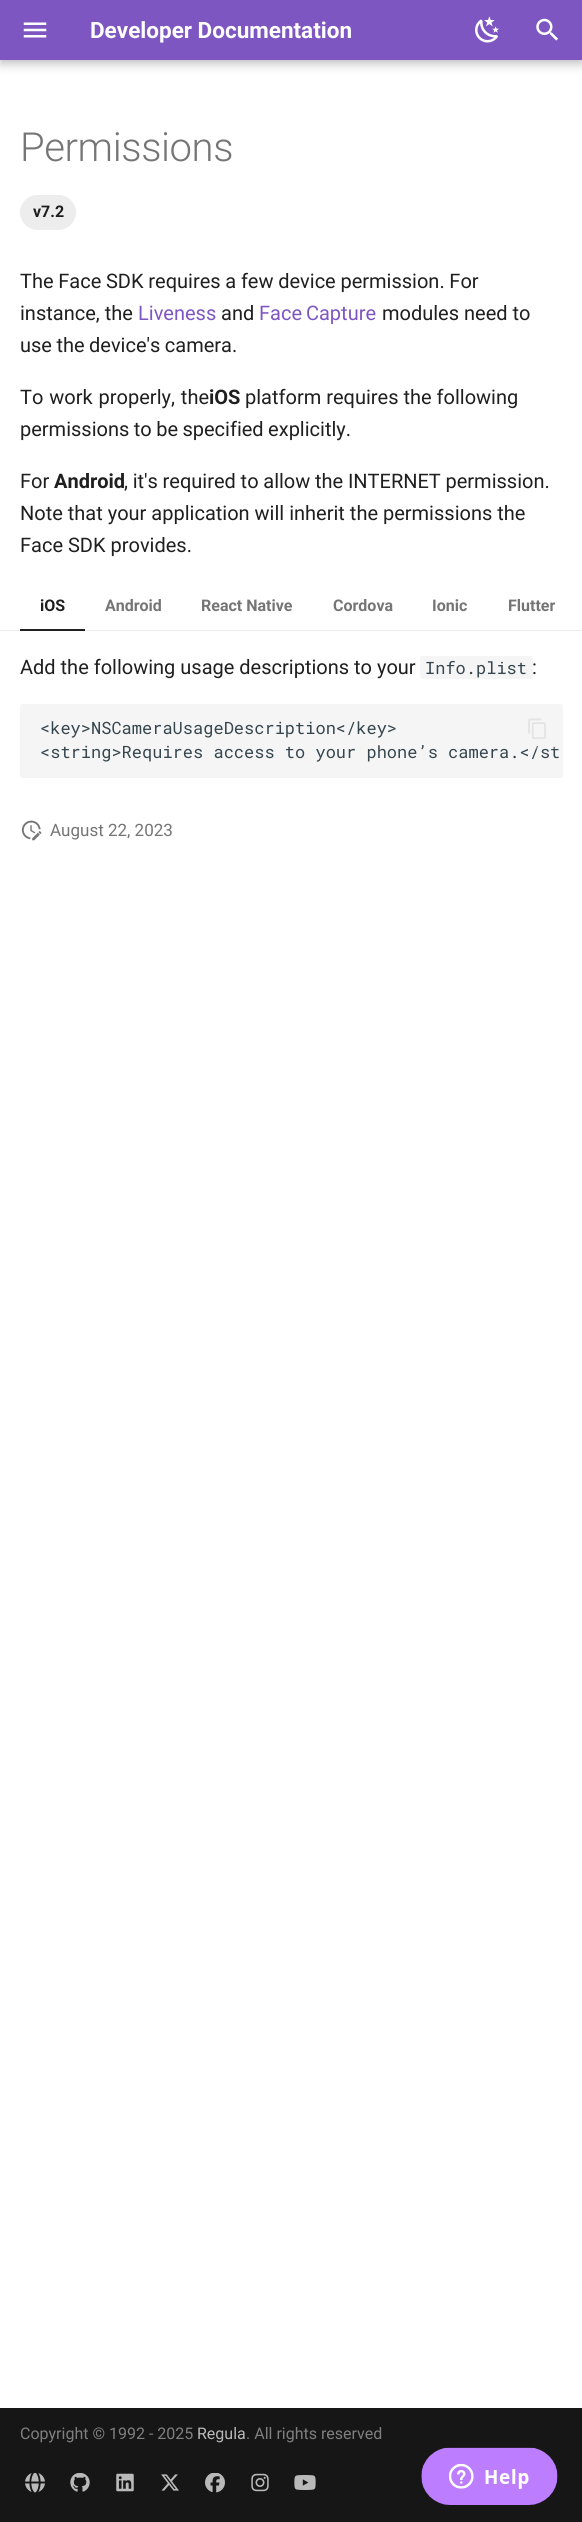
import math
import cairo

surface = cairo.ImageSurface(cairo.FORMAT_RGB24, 582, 2522)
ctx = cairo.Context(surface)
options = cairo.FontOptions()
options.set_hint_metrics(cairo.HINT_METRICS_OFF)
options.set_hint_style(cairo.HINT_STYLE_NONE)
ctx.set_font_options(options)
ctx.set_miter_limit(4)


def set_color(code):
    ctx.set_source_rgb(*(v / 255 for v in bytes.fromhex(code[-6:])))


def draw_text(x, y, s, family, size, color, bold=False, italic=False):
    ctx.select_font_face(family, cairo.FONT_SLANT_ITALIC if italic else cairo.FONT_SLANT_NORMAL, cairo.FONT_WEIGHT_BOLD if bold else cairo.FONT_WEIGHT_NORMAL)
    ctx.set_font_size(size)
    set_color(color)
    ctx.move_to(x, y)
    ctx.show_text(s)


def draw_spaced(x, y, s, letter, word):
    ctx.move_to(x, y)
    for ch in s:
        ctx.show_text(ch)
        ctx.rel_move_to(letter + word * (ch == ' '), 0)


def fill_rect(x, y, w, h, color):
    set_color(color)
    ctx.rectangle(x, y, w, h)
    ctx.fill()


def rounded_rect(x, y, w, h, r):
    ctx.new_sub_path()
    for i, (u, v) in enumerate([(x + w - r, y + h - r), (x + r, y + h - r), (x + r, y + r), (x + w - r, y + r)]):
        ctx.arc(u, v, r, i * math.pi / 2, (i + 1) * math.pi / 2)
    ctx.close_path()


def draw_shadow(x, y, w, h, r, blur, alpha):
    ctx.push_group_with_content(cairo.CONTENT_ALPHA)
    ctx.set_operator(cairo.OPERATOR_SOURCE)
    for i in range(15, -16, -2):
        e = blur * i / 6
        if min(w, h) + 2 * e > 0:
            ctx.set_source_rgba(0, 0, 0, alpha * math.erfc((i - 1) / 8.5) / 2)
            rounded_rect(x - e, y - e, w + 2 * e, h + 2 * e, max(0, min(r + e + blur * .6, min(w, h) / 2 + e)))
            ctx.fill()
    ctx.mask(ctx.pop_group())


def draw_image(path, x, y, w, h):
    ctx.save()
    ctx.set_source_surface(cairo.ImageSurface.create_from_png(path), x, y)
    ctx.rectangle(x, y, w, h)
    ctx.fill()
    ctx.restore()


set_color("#ffffff")
ctx.paint()
fill_rect(20, 629, 65, 1, "#212121")
set_color("#000000")
draw_shadow(0, 5, 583, 60, 0, 5, 0.2)
draw_shadow(0, 0, 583, 60, 0, 2.5, 0.1)
fill_rect(0, 0, 582, 60, "#7e56c2")
draw_image("assets/img1.png", 23, 22, 24, 16)
draw_text(90, 38, "Developer Documentation", "Roboto", 22.5, "#ffffff", bold=True)
draw_image("assets/img2.png", 475, 16, 24, 27)
draw_image("assets/img3.png", 536, 18, 22, 23)
ctx.select_font_face("Roboto Light")
ctx.set_font_size(40)
set_color("#757575")
draw_spaced(20, 161, "Permissions", -0.4, 0)
set_color("#ededed")
rounded_rect(20, 195, 56, 35, 17.5)
ctx.fill()
draw_text(33, 217, "v7.2", "Roboto", 16, "#1f1f1f", bold=True)
ctx.select_font_face("Roboto")
ctx.set_font_size(20)
draw_spaced(20, 288, "The Face SDK requires a few device permission. For", 0, -0.25)
draw_text(20, 320, "instance, the", "Roboto", 20, "#1f1f1f")
draw_text(138, 320, "Liveness", "Roboto", 20, "#7e56c2")
draw_text(221, 320, "and", "Roboto", 20, "#1f1f1f")
set_color("#7e56c2")
draw_spaced(259, 320, "Face Capture", 0, -1)
draw_text(382, 320, "modules need to", "Roboto", 20, "#1f1f1f")
draw_spaced(20, 352, "use the device's camera.", 0, -0.5)
draw_spaced(20, 404, "To work properly, the", 0, 1)
draw_text(209, 404, "iOS", "Roboto", 20, "#1f1f1f", bold=True)
draw_text(245, 404, "platform requires the following", "Roboto", 20, "#1f1f1f")
draw_spaced(20, 436, "permissions to be specified explicitly.", 0, -0.5)
draw_text(20, 488, "For", "Roboto", 20, "#1f1f1f")
draw_text(54, 488, "Android", "Roboto", 20, "#1f1f1f", bold=True)
ctx.select_font_face("Roboto")
draw_spaced(124, 488, ", it's required to allow the INTERNET permission.", 0, -0.25)
draw_text(20, 520, "Note that your application will inherit the permissions the", "Roboto", 20, "#1f1f1f")
draw_text(20, 552, "Face SDK provides.", "Roboto", 20, "#1f1f1f")
fill_rect(0, 630, 582, 1, "#ededed")
fill_rect(20, 630, 65, 1, "#1f1f1f")
draw_text(40, 611, "iOS", "Roboto", 16, "#1f1f1f", bold=True)
draw_text(105, 611, "Android", "Roboto", 16, "#757575", bold=True)
draw_text(201, 611, "React Native", "Roboto", 16, "#757575", bold=True)
draw_text(333, 611, "Cordova", "Roboto", 16, "#757575", bold=True)
draw_text(432, 611, "Ionic", "Roboto", 16, "#757575", bold=True)
draw_text(508, 611, "Flutter", "Roboto", 16, "#757575", bold=True)
draw_text(20, 674, "Add the following usage descriptions to your", "Roboto", 20, "#1f1f1f")
set_color("#f5f5f5")
rounded_rect(420, 656, 113, 23, 2.5)
ctx.fill()
draw_text(425, 674, "Info.plist", "Roboto Mono", 17, "#36464e")
draw_text(532, 674, ":", "Roboto", 20, "#1f1f1f")
set_color("#f5f5f5")
rounded_rect(20, 704, 543, 74, 2.5)
ctx.fill()
draw_text(40, 758, "<string>Requires access to your phone’s camera.</st", "Roboto Mono", 17, "#36464e")
ctx.set_source_rgba(0.961, 0.961, 0.961, 0.3)
rounded_rect(518, 709, 40, 40, 2.5)
ctx.fill()
draw_image("assets/img4.png", 528, 718, 18, 21)
draw_text(40, 734, "<key>NSCameraUsageDescription</key>", "Roboto Mono", 17, "#36464e")
draw_image("assets/img5.png", 21, 820, 21, 21)
draw_text(50, 836, "August 22, 2023", "Roboto", 17, "#757575")
fill_rect(0, 2408, 582, 114, "#161616")
draw_text(20, 2439, "Copyright © 1992 - 2025", "Roboto", 16, "#7f7f7f")
draw_text(197, 2439, "Regula", "Roboto", 16, "#b9b9b9")
draw_text(246, 2439, ". All rights reserved", "Roboto", 16, "#7f7f7f")
draw_image("assets/img6.png", 25, 2473, 20, 20)
draw_image("assets/img7.png", 70, 2473, 20, 19)
draw_image("assets/img8.png", 116, 2473, 18, 19)
draw_image("assets/img9.png", 161, 2474, 18, 17)
draw_image("assets/img10.png", 205, 2473, 20, 20)
draw_image("assets/img11.png", 251, 2473, 18, 19)
draw_image("assets/img12.png", 294, 2475, 22, 15)
draw_image("assets/img13.png", 421, 2447, 137, 58)
surface.write_to_png("output.png")
